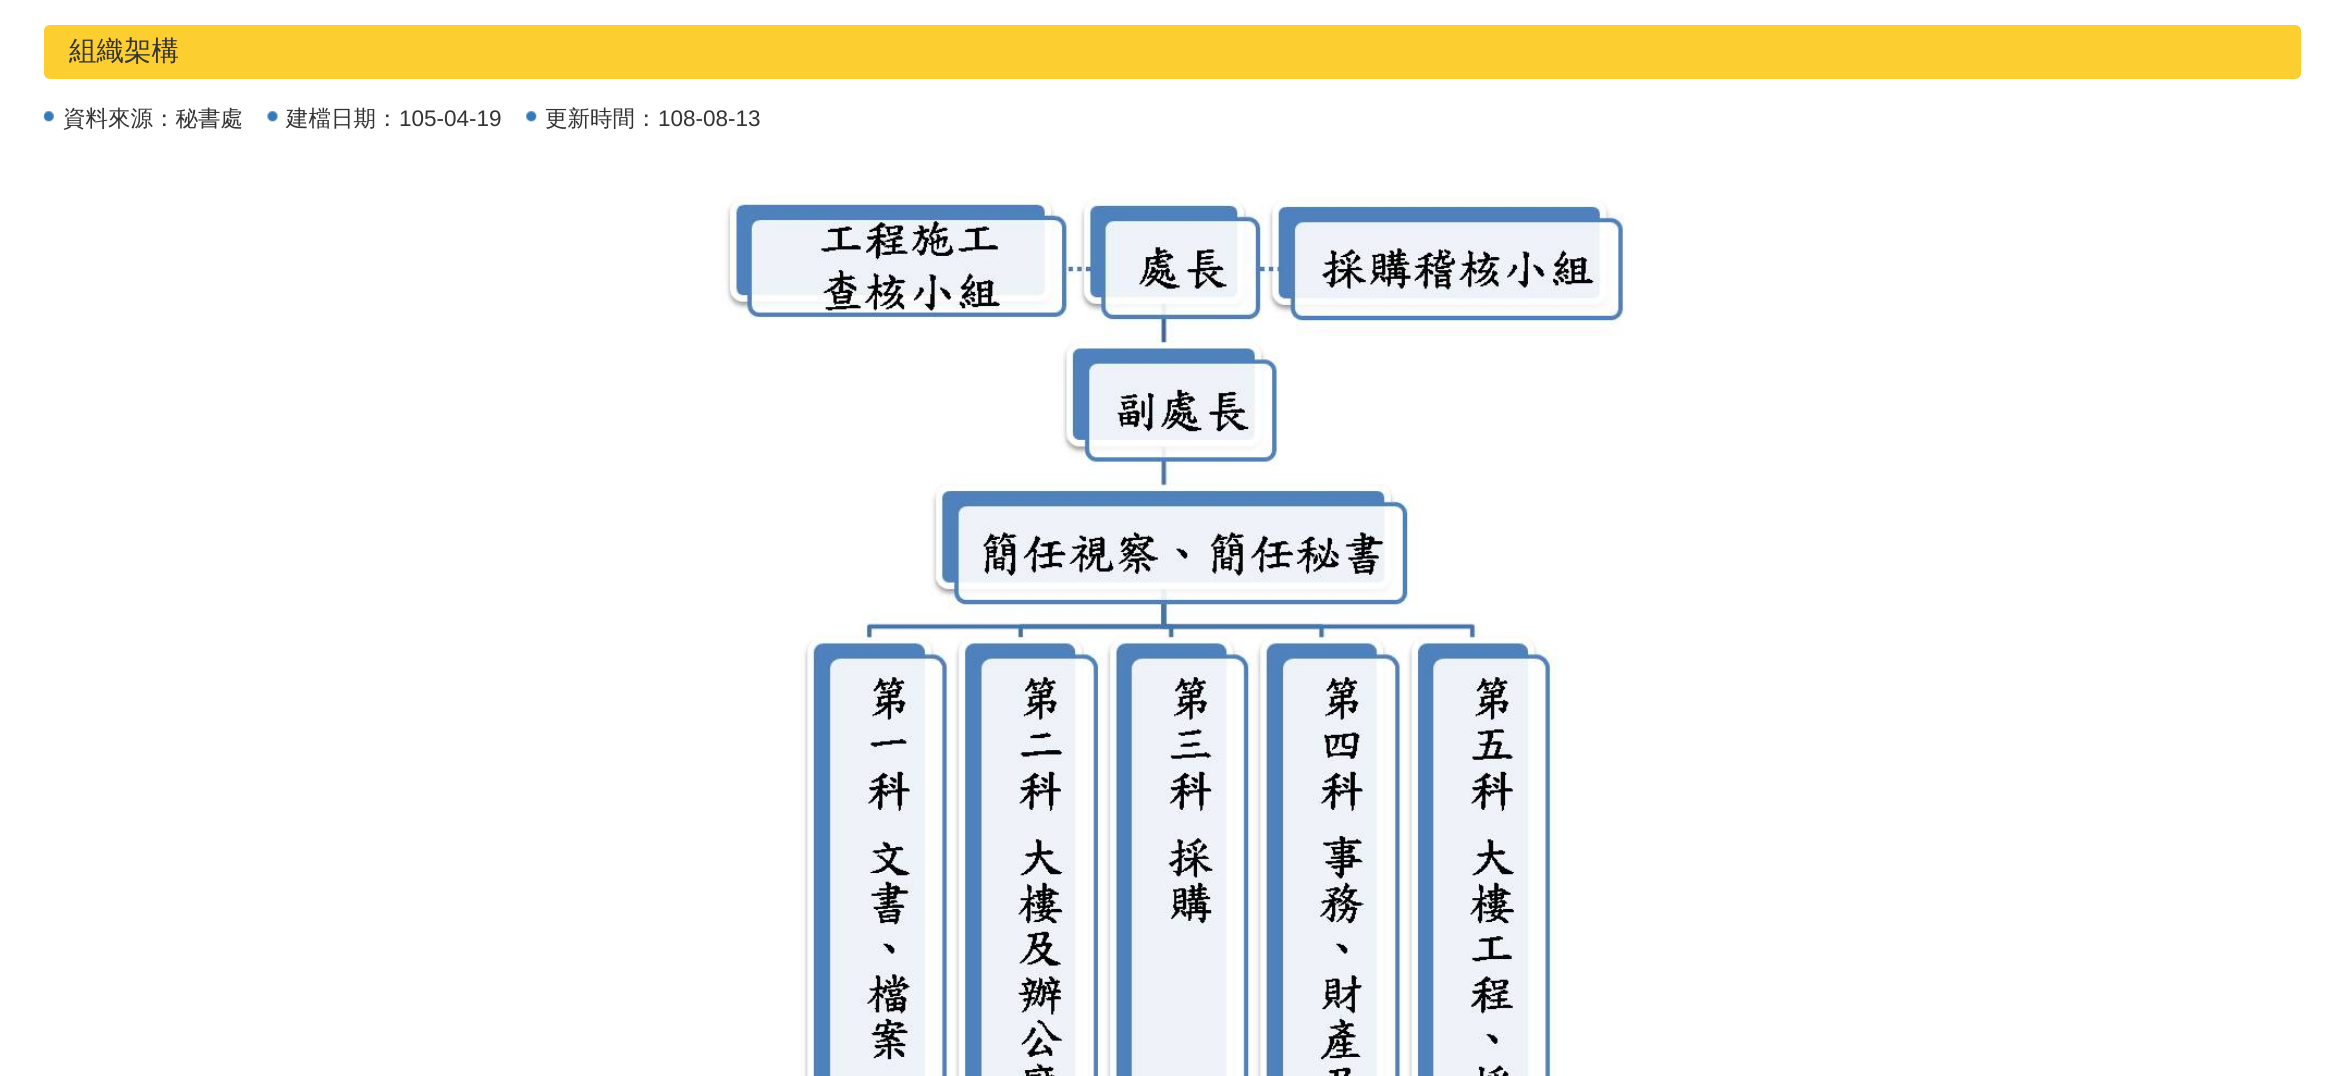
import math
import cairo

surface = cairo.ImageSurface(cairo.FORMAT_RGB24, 2345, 1076)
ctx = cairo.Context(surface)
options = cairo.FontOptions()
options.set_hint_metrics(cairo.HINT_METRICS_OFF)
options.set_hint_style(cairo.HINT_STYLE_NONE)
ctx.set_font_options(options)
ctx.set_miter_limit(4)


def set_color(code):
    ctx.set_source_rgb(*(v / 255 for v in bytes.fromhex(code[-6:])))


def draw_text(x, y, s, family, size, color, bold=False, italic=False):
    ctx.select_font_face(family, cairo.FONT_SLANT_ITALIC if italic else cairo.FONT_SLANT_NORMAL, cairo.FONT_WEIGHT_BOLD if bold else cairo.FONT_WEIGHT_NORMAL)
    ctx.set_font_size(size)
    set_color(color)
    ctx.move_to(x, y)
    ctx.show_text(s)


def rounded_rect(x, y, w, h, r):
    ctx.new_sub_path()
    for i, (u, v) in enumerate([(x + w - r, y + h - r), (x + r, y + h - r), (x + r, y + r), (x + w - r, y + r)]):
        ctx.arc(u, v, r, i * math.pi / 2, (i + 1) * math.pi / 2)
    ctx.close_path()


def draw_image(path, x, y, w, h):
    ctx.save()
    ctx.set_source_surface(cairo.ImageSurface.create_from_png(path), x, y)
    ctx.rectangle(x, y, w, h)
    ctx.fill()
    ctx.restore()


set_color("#ffffff")
ctx.paint()
set_color("#fcce30")
rounded_rect(44, 25, 2257, 54, 6)
ctx.fill()
draw_text(69, 60, "組織架構", "WenQuanYi Zen Hei Medium", 27.5, "#333333")
draw_image("assets/img1.png", 43, 111, 11, 11)
draw_text(63, 126, "資料來源：秘書處", "WenQuanYi Zen Hei Medium", 22.5, "#333333")
draw_image("assets/img2.png", 267, 111, 11, 11)
draw_text(286, 126, "建檔日期：", "WenQuanYi Zen Hei Medium", 22.5, "#333333")
draw_text(399, 126, "105-04-19", "Liberation Sans", 22.5, "#333333")
draw_image("assets/img3.png", 526, 111, 11, 11)
draw_text(545, 126, "更新時間：", "WenQuanYi Zen Hei Medium", 22.5, "#333333")
draw_text(658, 126, "108-08-13", "Liberation Sans", 22.5, "#333333")
draw_image("assets/img4.png", 721, 196, 903, 880)
surface.write_to_png("output.png")
